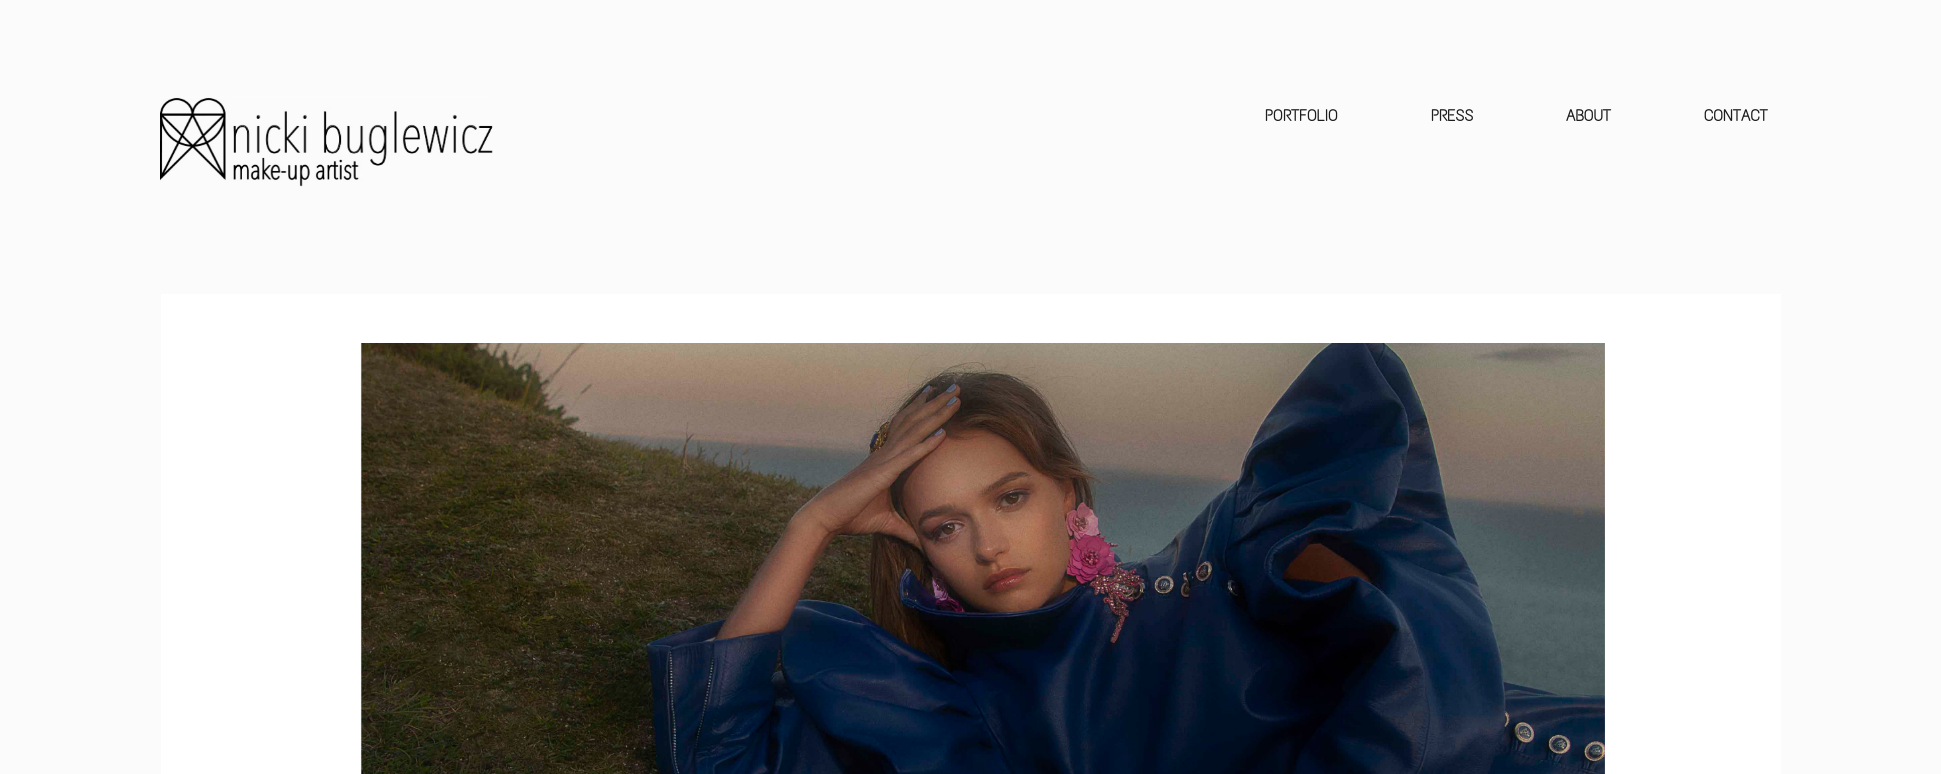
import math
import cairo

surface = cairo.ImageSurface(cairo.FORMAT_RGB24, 1941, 774)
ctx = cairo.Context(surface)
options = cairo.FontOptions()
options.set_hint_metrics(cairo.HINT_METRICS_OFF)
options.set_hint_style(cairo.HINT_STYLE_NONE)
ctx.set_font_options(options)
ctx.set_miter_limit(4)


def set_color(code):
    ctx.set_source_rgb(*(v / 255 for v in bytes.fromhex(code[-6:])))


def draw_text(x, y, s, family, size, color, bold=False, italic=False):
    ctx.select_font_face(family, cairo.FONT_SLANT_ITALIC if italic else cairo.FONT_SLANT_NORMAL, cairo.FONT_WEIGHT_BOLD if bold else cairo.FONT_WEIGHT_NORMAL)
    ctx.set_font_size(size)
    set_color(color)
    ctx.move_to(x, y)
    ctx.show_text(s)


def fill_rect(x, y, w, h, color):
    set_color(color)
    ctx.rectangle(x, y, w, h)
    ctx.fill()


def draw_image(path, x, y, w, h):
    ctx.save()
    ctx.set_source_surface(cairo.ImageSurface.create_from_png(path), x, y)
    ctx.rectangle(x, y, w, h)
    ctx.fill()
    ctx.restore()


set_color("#fbfbfb")
ctx.paint()
draw_image("assets/img1.png", 160, 97, 333, 90)
draw_text(1265, 121, "PORTFOLIO", "Text Me One", 16.25, "#1d1d1d", bold=True)
draw_text(1431, 121, "PRESS", "Text Me One", 16.25, "#1d1d1d", bold=True)
draw_text(1566, 121, "ABOUT", "Text Me One", 16.25, "#1d1d1d", bold=True)
draw_text(1704, 121, "CONTACT", "Text Me One", 16.25, "#1d1d1d", bold=True)
fill_rect(161, 294, 1620, 480, "#ffffff")
draw_image("assets/img2.png", 360, 343, 1245, 431)
surface.write_to_png("output.png")
